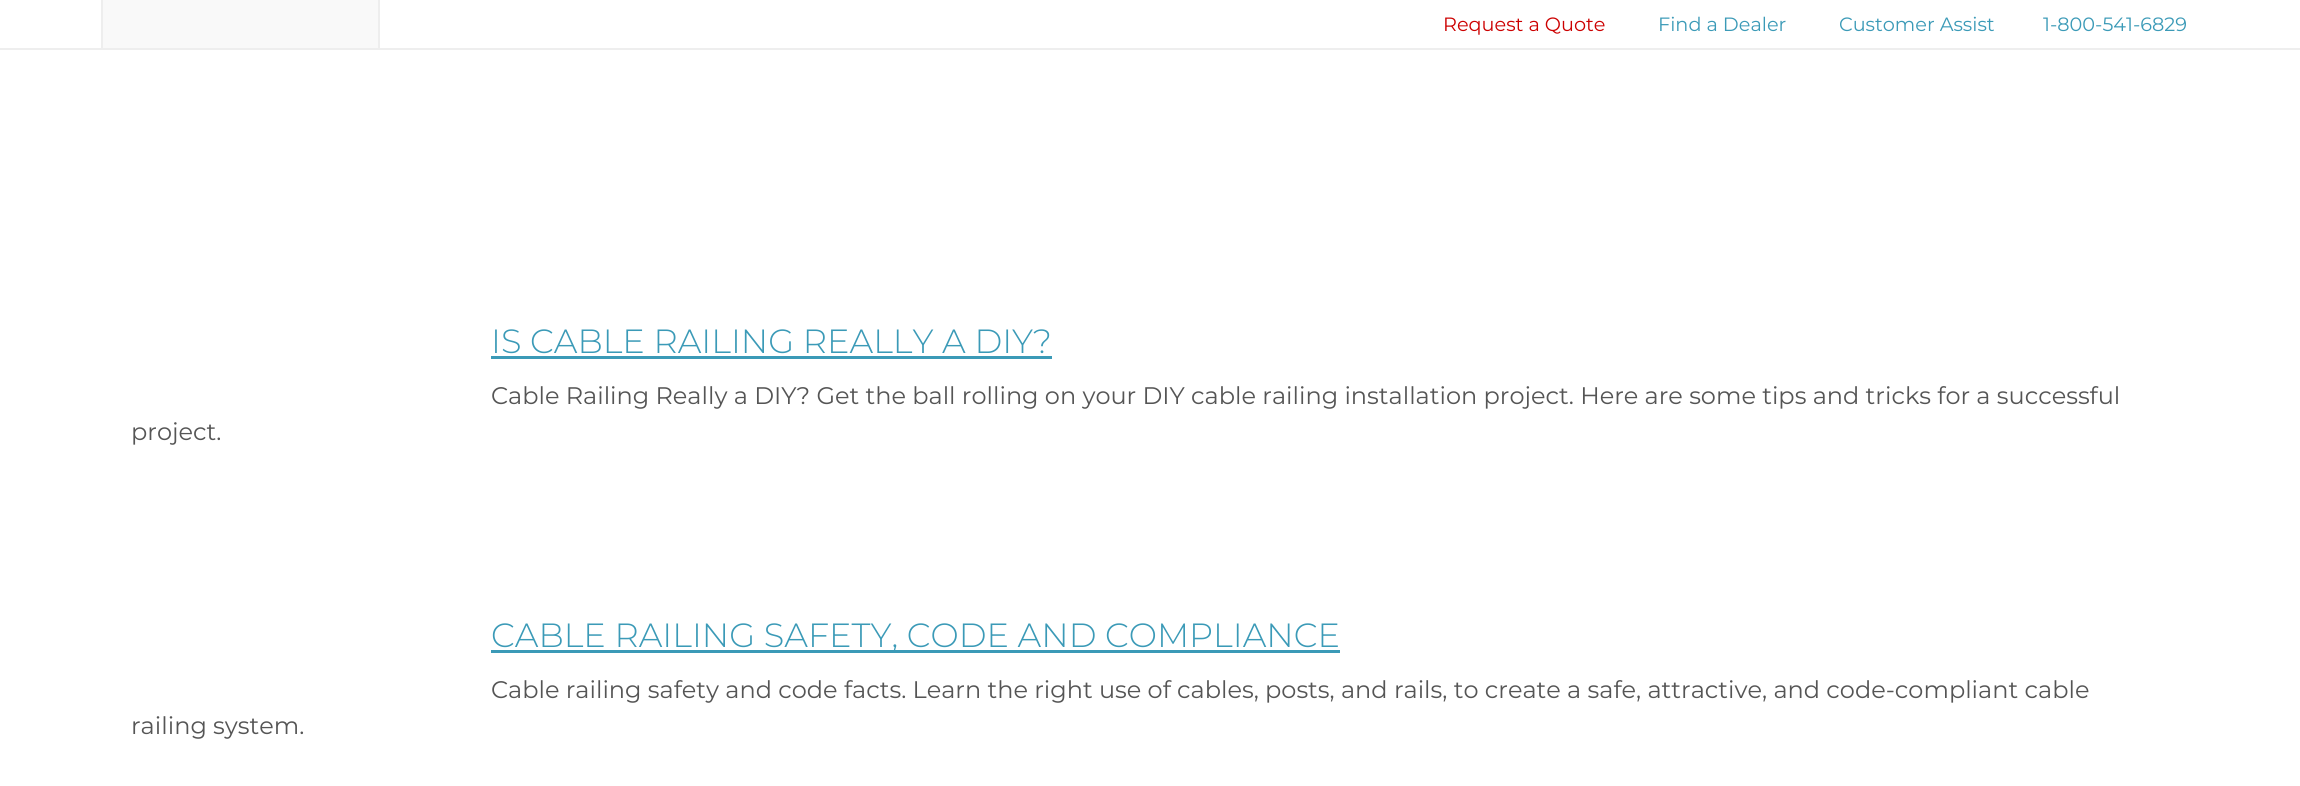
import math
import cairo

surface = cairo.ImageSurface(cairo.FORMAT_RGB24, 2300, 786)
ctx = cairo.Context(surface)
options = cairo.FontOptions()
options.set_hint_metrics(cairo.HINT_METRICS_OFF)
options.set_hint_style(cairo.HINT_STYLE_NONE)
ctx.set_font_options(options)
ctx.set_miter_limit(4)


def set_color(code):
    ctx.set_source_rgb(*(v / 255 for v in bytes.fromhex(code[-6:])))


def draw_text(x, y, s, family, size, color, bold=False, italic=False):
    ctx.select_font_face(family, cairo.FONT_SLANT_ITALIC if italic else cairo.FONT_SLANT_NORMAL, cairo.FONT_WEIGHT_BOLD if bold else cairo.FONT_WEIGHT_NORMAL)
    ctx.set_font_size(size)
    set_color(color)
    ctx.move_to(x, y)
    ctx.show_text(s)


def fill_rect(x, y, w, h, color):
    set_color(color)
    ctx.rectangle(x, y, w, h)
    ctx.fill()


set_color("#ffffff")
ctx.paint()
fill_rect(0, 48, 2300, 2, "#eeeeee")
fill_rect(103, 0, 275, 48, "#f9f9f9")
fill_rect(378, 0, 2, 48, "#eeeeee")
fill_rect(101, 0, 2, 48, "#eeeeee")
draw_text(1443, 31, "Request a Quote", "Montserrat", 19.25, "#cc0000")
draw_text(1658, 31, "Find a Dealer", "Montserrat", 19.25, "#3b9ab7")
draw_text(1839, 31, "Customer Assist", "Montserrat", 19.25, "#3b9ab7")
draw_text(2043, 31, "1-800-541-6829", "Montserrat", 19.25, "#3b9ab7")
draw_text(491, 353, "IS CABLE RAILING REALLY A DIY?", "Montserrat Light", 33.6, "#3b9ab7")
fill_rect(491, 356, 561, 3, "#3b9ab7")
draw_text(491, 404, "Cable Railing Really a DIY? Get the ball rolling on your DIY cable railing installation project. Here are some tips and tricks for a successful", "Montserrat", 24, "#555555")
draw_text(131, 440, "project.", "Montserrat", 24, "#555555")
fill_rect(491, 650, 849, 3, "#3b9ab7")
draw_text(491, 647, "CABLE RAILING SAFETY, CODE AND COMPLIANCE", "Montserrat Light", 33.6, "#3b9ab7")
draw_text(491, 698, "Cable railing safety and code facts. Learn the right use of cables, posts, and rails, to create a safe, attractive, and code-compliant cable", "Montserrat", 24, "#555555")
draw_text(131, 734, "railing system.", "Montserrat", 24, "#555555")
surface.write_to_png("output.png")
